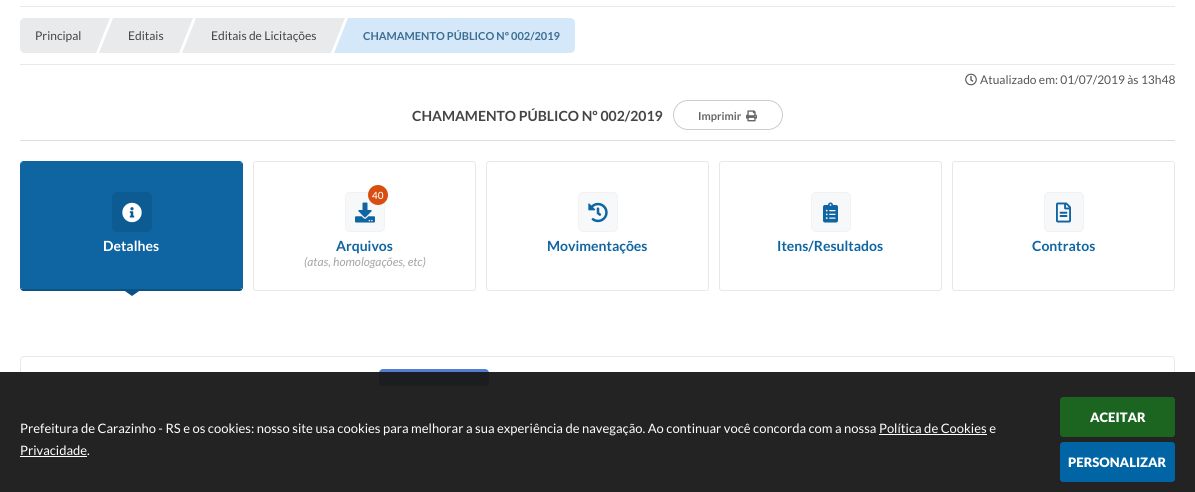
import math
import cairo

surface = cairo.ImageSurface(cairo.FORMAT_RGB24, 1195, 492)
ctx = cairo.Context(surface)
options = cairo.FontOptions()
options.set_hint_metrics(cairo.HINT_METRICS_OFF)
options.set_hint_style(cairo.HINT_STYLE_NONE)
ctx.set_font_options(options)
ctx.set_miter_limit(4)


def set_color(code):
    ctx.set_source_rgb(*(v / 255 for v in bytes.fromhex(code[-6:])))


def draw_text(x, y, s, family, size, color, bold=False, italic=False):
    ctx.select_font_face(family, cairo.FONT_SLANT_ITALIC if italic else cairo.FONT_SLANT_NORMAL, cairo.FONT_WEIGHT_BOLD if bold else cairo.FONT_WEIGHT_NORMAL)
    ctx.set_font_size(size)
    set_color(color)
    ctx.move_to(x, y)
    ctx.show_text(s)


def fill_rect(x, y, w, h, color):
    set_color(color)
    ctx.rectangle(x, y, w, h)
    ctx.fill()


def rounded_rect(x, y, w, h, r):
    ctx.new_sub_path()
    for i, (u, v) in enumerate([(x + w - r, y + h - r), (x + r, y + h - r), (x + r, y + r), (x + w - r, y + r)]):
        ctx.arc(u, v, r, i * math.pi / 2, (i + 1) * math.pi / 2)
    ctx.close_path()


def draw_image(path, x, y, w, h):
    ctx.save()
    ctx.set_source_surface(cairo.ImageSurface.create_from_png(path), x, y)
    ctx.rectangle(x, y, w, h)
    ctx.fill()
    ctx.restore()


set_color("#ffffff")
ctx.paint()
fill_rect(20, 6, 1155, 1, "#e9e9e9")
fill_rect(20, 64, 1155, 1, "#e9e9e9")
set_color("#e9eaec")
ctx.new_path()
ctx.move_to(25, 18)
ctx.line_to(96, 18)
ctx.line_to(96, 53)
ctx.line_to(25, 53)
ctx.curve_to(22, 53, 20, 51, 20, 48)
ctx.line_to(20, 23)
ctx.curve_to(20, 20, 22, 18, 25, 18)
ctx.close_path()
ctx.fill()
draw_text(35, 40, "Principal", "Lato", 12, "#444444")
set_color("#e9eaec")
ctx.new_path()
ctx.move_to(96, 18)
ctx.line_to(110, 18)
ctx.line_to(96, 53)
ctx.close_path()
ctx.fill()
fill_rect(113, 18, 66, 35, "#e9eaec")
ctx.new_path()
ctx.move_to(113, 53)
ctx.line_to(99, 53)
ctx.line_to(113, 18)
ctx.close_path()
ctx.fill()
draw_text(128, 40, "Editais", "Lato", 12, "#444444")
set_color("#e9eaec")
ctx.new_path()
ctx.move_to(179, 18)
ctx.line_to(193, 18)
ctx.line_to(179, 53)
ctx.close_path()
ctx.fill()
fill_rect(196, 18, 135, 35, "#e9eaec")
ctx.new_path()
ctx.move_to(196, 53)
ctx.line_to(182, 53)
ctx.line_to(196, 18)
ctx.close_path()
ctx.fill()
draw_text(211, 40, "Editais de Licitações", "Lato", 12, "#444444")
set_color("#e9eaec")
ctx.new_path()
ctx.move_to(331, 18)
ctx.line_to(345, 18)
ctx.line_to(331, 53)
ctx.close_path()
ctx.fill()
set_color("#d4e8f9")
ctx.new_path()
ctx.move_to(348, 18)
ctx.line_to(570, 18)
ctx.curve_to(573, 18, 575, 20, 575, 23)
ctx.line_to(575, 48)
ctx.curve_to(575, 51, 573, 53, 570, 53)
ctx.line_to(348, 53)
ctx.close_path()
ctx.fill()
ctx.new_path()
ctx.move_to(348, 53)
ctx.line_to(334, 53)
ctx.line_to(348, 18)
ctx.close_path()
ctx.fill()
draw_text(363, 40, "CHAMAMENTO PÚBLICO Nº 002/2019", "Lato", 11, "#3d6d92", bold=True)
draw_image("assets/img1.png", 965, 73, 12, 13)
draw_text(980, 84, "Atualizado em: 01/07/2019 às 13h48", "Lato", 12, "#555555")
fill_rect(20, 140, 1155, 1, "#dddddd")
draw_text(412, 121, "CHAMAMENTO PÚBLICO Nº 002/2019", "Lato", 14, "#444444", bold=True)
rounded_rect(673.5, 100.5, 109, 29, 14.5)
set_color("#cccccc")
ctx.set_line_width(1)
ctx.stroke()
draw_text(698, 120, "Imprimir", "Lato", 11, "#666666", bold=True)
draw_image("assets/img2.png", 746, 110, 11, 12)
set_color("#0f65a2")
ctx.new_path()
ctx.move_to(23, 162)
ctx.line_to(240, 162)
ctx.curve_to(241, 162, 242, 163, 242, 164)
ctx.line_to(242, 288)
ctx.curve_to(242, 289, 241, 289, 240, 289)
ctx.line_to(23, 289)
ctx.curve_to(22, 289, 21, 289, 21, 288)
ctx.line_to(21, 164)
ctx.curve_to(21, 163, 22, 162, 23, 162)
ctx.close_path()
ctx.fill()
ctx.new_path()
ctx.move_to(23, 161)
ctx.line_to(21, 162)
ctx.line_to(22, 163)
ctx.line_to(23, 162)
ctx.line_to(240, 162)
ctx.line_to(241, 163)
ctx.line_to(242, 162)
ctx.line_to(240, 161)
ctx.close_path()
ctx.fill()
ctx.new_path()
ctx.move_to(243, 288)
ctx.line_to(243, 164)
ctx.line_to(242, 162)
ctx.line_to(241, 163)
ctx.line_to(242, 164)
ctx.line_to(242, 289)
ctx.line_to(242, 290)
ctx.close_path()
ctx.fill()
set_color("#0b5284")
ctx.new_path()
ctx.move_to(23, 291)
ctx.line_to(240, 291)
ctx.line_to(242, 290)
ctx.line_to(242, 289)
ctx.line_to(240, 289)
ctx.line_to(23, 289)
ctx.line_to(21, 289)
ctx.line_to(21, 290)
ctx.close_path()
ctx.fill()
set_color("#0f65a2")
ctx.new_path()
ctx.move_to(20, 164)
ctx.line_to(20, 288)
ctx.line_to(21, 290)
ctx.line_to(21, 289)
ctx.line_to(21, 164)
ctx.line_to(22, 163)
ctx.line_to(21, 162)
ctx.close_path()
ctx.fill()
set_color("#0d5b93")
rounded_rect(112.5, 192.5, 39, 39, 4.5)
ctx.fill_preserve()
ctx.stroke()
draw_image("assets/img3.png", 122, 202, 20, 21)
draw_text(103, 251, "Detalhes", "Lato", 14, "#ffffff", bold=True)
set_color("#0b5284")
ctx.new_path()
ctx.move_to(122, 289)
ctx.line_to(142, 289)
ctx.line_to(132, 296)
ctx.close_path()
ctx.fill()
rounded_rect(253.5, 161.5, 222, 129, 2.5)
set_color("#e8e8e8")
ctx.stroke()
set_color("#f7f8fa")
rounded_rect(345.5, 192.5, 39, 39, 4.5)
ctx.fill_preserve()
set_color("#f2f2f2")
ctx.stroke()
draw_image("assets/img4.png", 355, 202, 20, 21)
set_color("#d84e11")
ctx.arc(378, 195, 10, 0, 2 * math.pi)
ctx.fill()
draw_text(372, 199, "40", "Lato Medium", 10, "#ffffff")
draw_text(336, 251, "Arquivos", "Lato", 14, "#0f65a2", bold=True)
draw_text(304, 266, "(atas, homologações, etc)", "Lato", 12, "#a5a5a5", italic=True)
rounded_rect(486.5, 161.5, 222, 129, 2.5)
set_color("#e8e8e8")
ctx.stroke()
set_color("#f7f8fa")
rounded_rect(578.5, 192.5, 39, 39, 4.5)
ctx.fill_preserve()
set_color("#f2f2f2")
ctx.stroke()
draw_image("assets/img5.png", 588, 202, 20, 21)
draw_text(547, 251, "Movimentações", "Lato", 14, "#0f65a2", bold=True)
rounded_rect(719.5, 161.5, 222, 129, 2.5)
set_color("#e8e8e8")
ctx.stroke()
set_color("#f7f8fa")
rounded_rect(811.5, 192.5, 39, 39, 4.5)
ctx.fill_preserve()
set_color("#f2f2f2")
ctx.stroke()
draw_image("assets/img6.png", 823, 202, 15, 21)
draw_text(777, 251, "Itens/Resultados", "Lato", 14, "#0f65a2", bold=True)
rounded_rect(952.5, 161.5, 222, 129, 2.5)
set_color("#e8e8e8")
ctx.stroke()
set_color("#f7f8fa")
rounded_rect(1044.5, 192.5, 39, 39, 4.5)
ctx.fill_preserve()
set_color("#f2f2f2")
ctx.stroke()
draw_image("assets/img7.png", 1056, 202, 15, 21)
draw_text(1032, 251, "Contratos", "Lato", 14, "#0f65a2", bold=True)
rounded_rect(20.5, 356.5, 1154, 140, 3.5)
set_color("#e7e9eb")
ctx.stroke()
set_color("#527ed3")
rounded_rect(379, 369, 110, 18, 4)
ctx.fill()
fill_rect(381, 386, 106, 1, "#ffffff")
fill_rect(21, 399, 1040, 1, "#e7e9eb")
fill_rect(21, 440, 1153, 1, "#e7e9eb")
fill_rect(21, 481, 1153, 1, "#e7e9eb")
ctx.set_source_rgba(0.098, 0.098, 0.098, 0.95)
ctx.rectangle(0, 372, 1195, 120)
ctx.fill()
draw_text(20, 433, "Prefeitura de Carazinho - RS e os cookies: nosso site usa cookies para melhorar a sua experiência de navegação. Ao continuar você concorda com a nossa Política de Cookies e", "Lato", 13, "#ffffff")
draw_text(20, 455, "Privacidade.", "Lato", 13, "#ffffff")
fill_rect(879, 434, 108, 1, "#ffffff")
fill_rect(20, 456, 67, 1, "#ffffff")
set_color("#1b6520")
rounded_rect(1060, 397, 115, 40, 3)
ctx.fill()
draw_text(1090, 422, "ACEITAR", "Lato Black", 13, "#ffffff")
set_color("#0164a4")
rounded_rect(1060, 442, 115, 40, 3)
ctx.fill()
draw_text(1068, 467, "PERSONALIZAR", "Lato Black", 13, "#ffffff")
surface.write_to_png("output.png")
